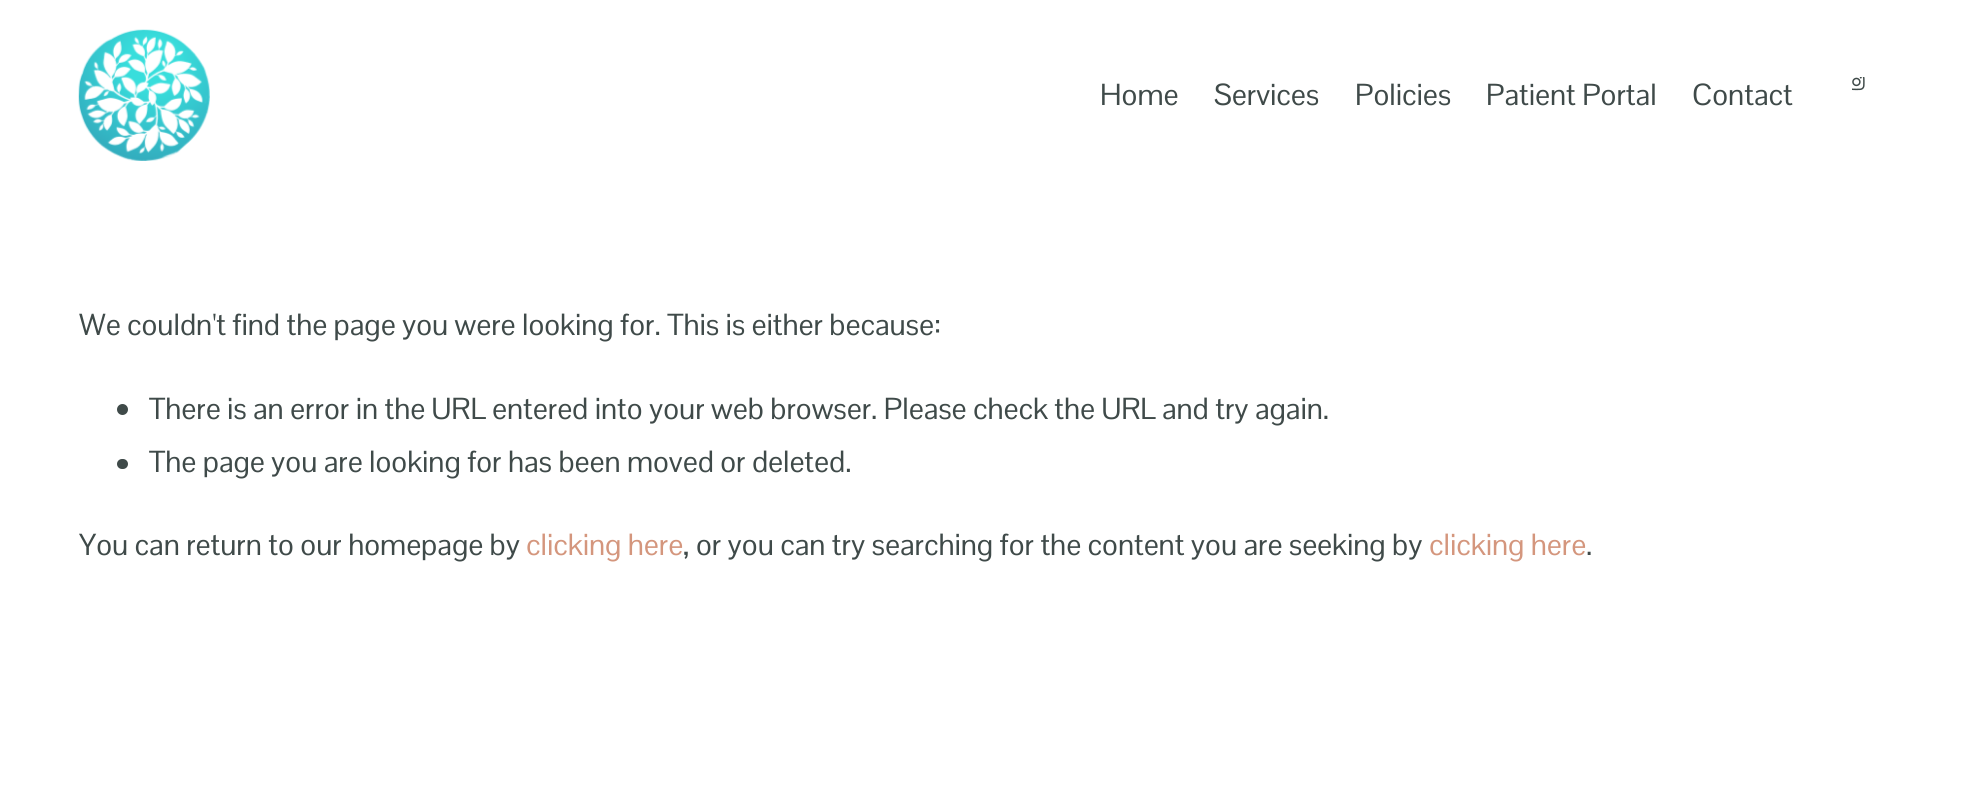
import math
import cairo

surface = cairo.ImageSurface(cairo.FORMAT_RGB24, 1964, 809)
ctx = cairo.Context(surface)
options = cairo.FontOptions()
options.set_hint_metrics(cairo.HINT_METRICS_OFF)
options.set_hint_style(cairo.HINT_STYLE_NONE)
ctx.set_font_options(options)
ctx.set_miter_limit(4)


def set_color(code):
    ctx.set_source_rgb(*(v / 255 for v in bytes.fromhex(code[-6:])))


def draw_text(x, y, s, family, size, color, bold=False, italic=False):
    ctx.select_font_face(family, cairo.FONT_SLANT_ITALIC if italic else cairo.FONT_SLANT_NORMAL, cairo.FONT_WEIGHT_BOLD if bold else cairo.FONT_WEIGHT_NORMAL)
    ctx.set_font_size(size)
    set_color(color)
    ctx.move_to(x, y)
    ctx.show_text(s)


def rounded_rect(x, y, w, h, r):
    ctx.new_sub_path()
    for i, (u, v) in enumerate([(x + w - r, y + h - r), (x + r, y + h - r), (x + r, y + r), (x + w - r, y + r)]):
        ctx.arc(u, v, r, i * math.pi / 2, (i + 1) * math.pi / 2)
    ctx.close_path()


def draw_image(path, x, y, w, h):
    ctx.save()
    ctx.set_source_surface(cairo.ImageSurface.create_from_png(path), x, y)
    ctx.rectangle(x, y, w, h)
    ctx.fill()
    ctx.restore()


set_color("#ffffff")
ctx.paint()
draw_image("assets/img1.png", 78, 29, 132, 132)
draw_text(1100, 105, "Home", "Pontano Sans", 29.75, "#3f4a49")
draw_text(1214, 105, "Services", "Pontano Sans", 29.75, "#3f4a49")
draw_text(1355, 105, "Policies", "Pontano Sans", 29.75, "#3f4a49")
draw_text(1486, 105, "Patient Portal", "Pontano Sans", 29.75, "#3f4a49")
draw_text(1692, 105, "Contact", "Pontano Sans", 29.75, "#3f4a49")
draw_image("assets/img2.png", 1852, 77, 13, 14)
draw_text(79, 335, "We couldn't find the page you were looking for. This is either because:", "Pontano Sans", 29.75, "#3f4a49")
ctx.new_path()
ctx.arc(122.5, 409.5, 5.5, 0, 2 * math.pi)
ctx.fill()
draw_text(149, 419, "There is an error in the URL entered into your web browser. Please check the URL and try again.", "Pontano Sans", 29.75, "#3f4a49")
rounded_rect(117, 459, 11, 10, 5)
ctx.fill()
draw_text(149, 472, "The page you are looking for has been moved or deleted.", "Pontano Sans", 29.75, "#3f4a49")
draw_text(79, 555, "You can return to our homepage by", "Pontano Sans", 29.75, "#3f4a49")
draw_text(526, 555, "clicking here", "Pontano Sans", 29.75, "#d4967d")
draw_text(683, 555, ", or you can try searching for the content you are seeking by", "Pontano Sans", 29.75, "#3f4a49")
draw_text(1429, 555, "clicking here", "Pontano Sans", 29.75, "#d4967d")
draw_text(1586, 555, ".", "Pontano Sans", 29.75, "#3f4a49")
surface.write_to_png("output.png")
